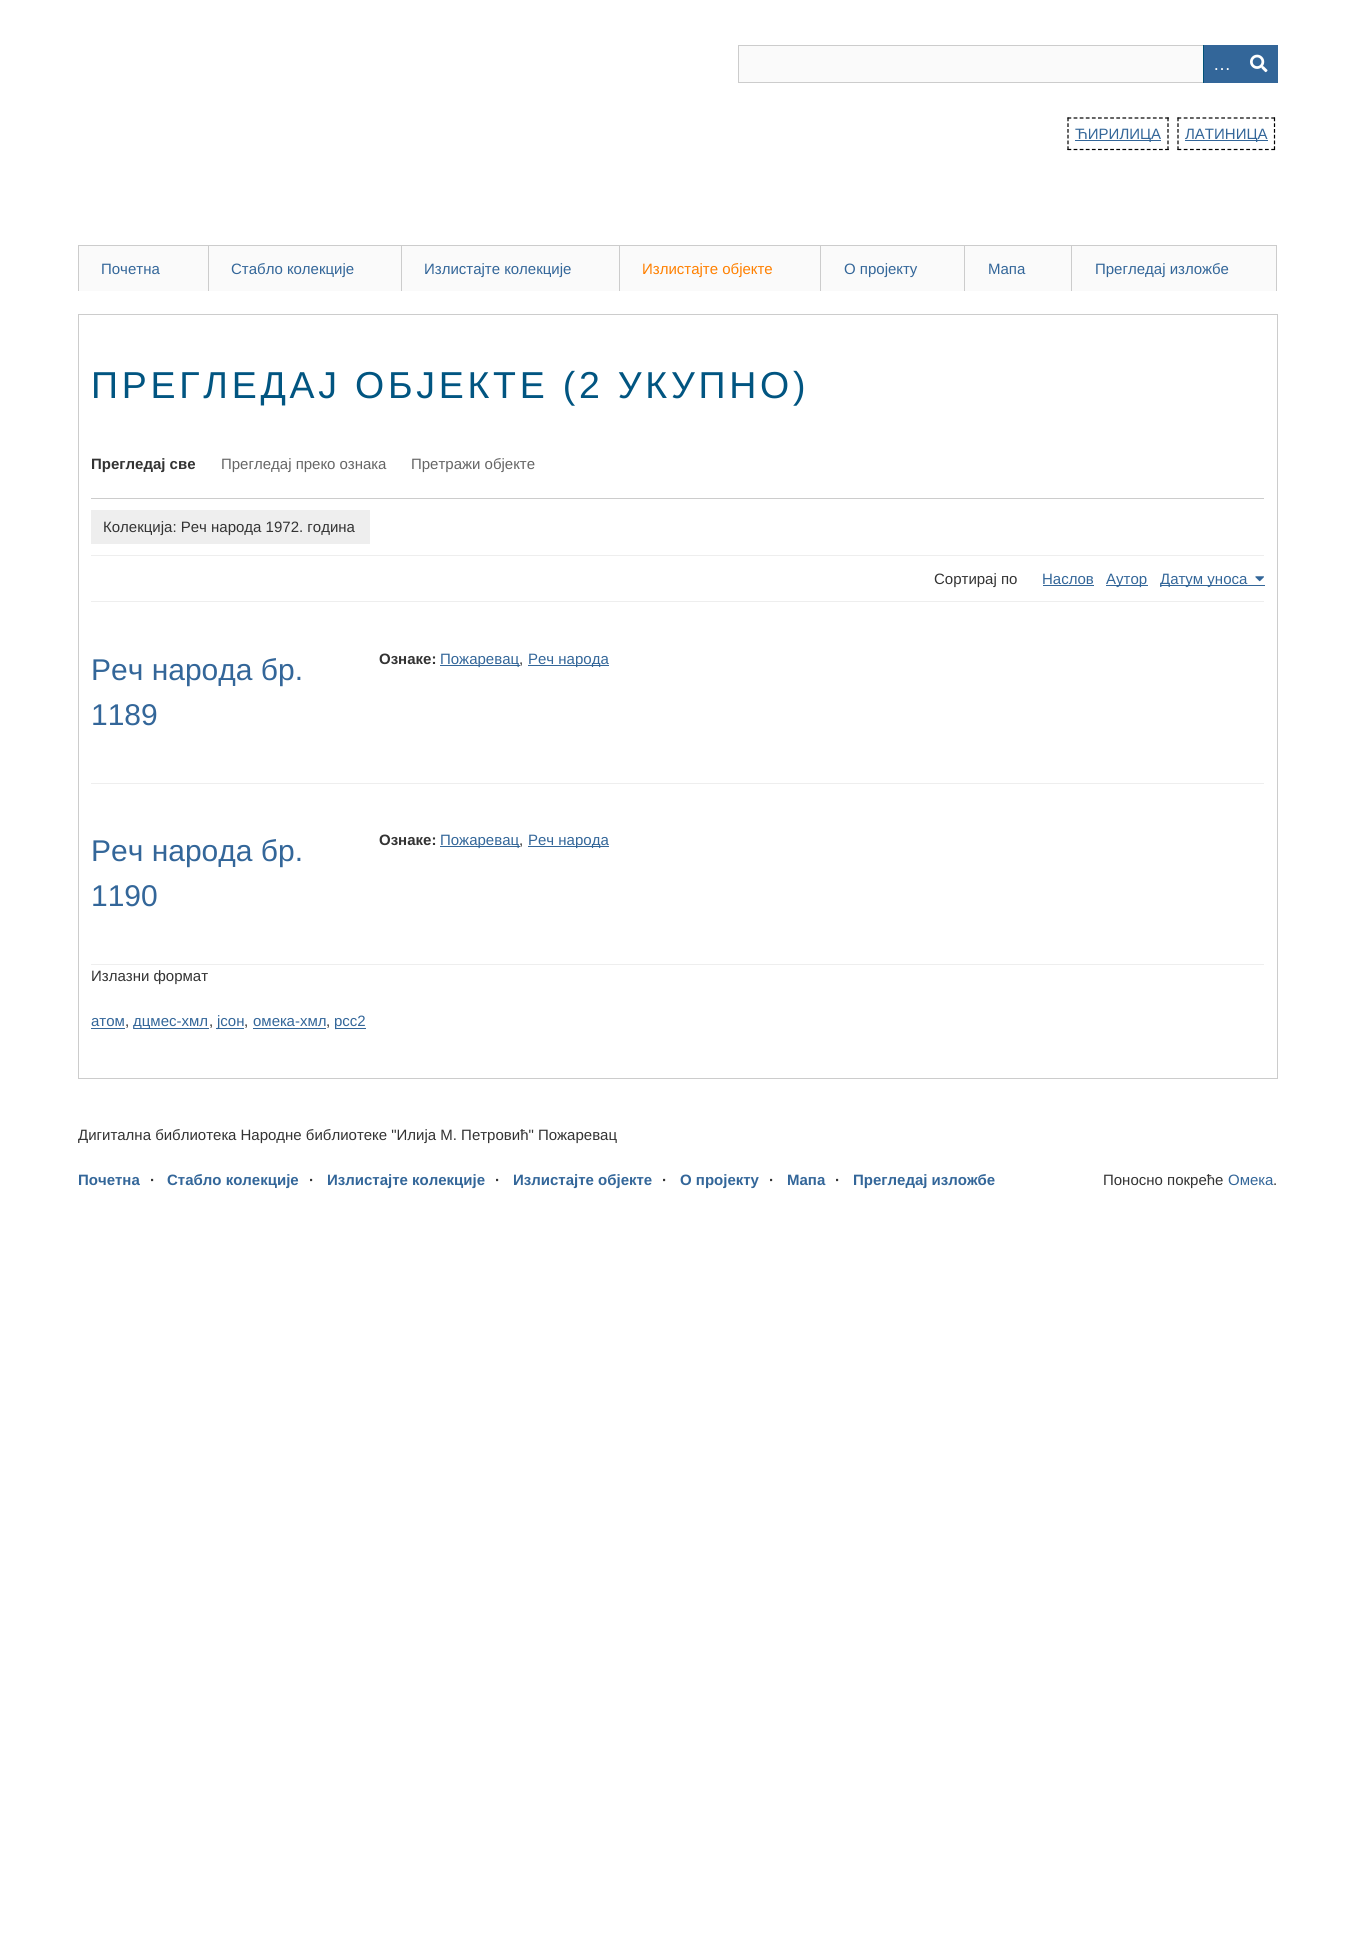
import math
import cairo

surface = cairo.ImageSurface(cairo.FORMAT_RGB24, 1355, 1956)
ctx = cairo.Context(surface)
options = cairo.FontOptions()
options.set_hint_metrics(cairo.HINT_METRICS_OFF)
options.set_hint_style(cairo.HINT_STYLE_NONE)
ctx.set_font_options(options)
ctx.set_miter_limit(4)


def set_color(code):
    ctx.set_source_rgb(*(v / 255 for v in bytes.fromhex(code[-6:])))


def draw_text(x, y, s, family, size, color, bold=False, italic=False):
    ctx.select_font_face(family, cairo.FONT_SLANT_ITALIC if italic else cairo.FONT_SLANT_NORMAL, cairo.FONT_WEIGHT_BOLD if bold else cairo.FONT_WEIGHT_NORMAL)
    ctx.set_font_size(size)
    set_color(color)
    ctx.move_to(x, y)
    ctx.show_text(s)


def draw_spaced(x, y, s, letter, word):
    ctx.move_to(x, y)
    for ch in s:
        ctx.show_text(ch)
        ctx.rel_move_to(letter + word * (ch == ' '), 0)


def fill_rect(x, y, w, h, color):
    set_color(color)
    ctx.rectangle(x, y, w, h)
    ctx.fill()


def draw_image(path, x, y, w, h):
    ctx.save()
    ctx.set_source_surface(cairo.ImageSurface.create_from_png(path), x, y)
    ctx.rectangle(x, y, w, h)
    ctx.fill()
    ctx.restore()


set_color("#ffffff")
ctx.paint()
fill_rect(739, 46, 464, 36, "#fafafa")
ctx.rectangle(738.5, 45.5, 539, 37)
set_color("#cccccc")
ctx.set_line_width(1)
ctx.stroke()
fill_rect(1203, 45, 1, 38, "#005177")
fill_rect(1204, 45, 74, 38, "#336699")
draw_text(1213, 70, "…", "Liberation Sans", 18, "#ffffff")
draw_image("assets/img1.png", 1250, 54, 18, 19)
fill_rect(1075, 140, 86, 1, "#336699")
draw_text(1075, 139, "ЋИРИЛИЦА", "Liberation Sans", 15, "#336699")
ctx.new_path()
ctx.move_to(1067.5, 118)
ctx.line_to(1169, 118)
set_color("#000000")
ctx.set_line_width(1.2)
ctx.set_dash([3.75, 2.35])
ctx.stroke()
ctx.new_path()
ctx.move_to(1168, 117.5)
ctx.line_to(1168, 150)
ctx.set_dash([3.75, 2])
ctx.stroke()
ctx.new_path()
ctx.move_to(1067.5, 149.5)
ctx.line_to(1169, 149.5)
ctx.set_dash([3.75, 2.35])
ctx.stroke()
ctx.new_path()
ctx.move_to(1068, 117.5)
ctx.line_to(1068, 150)
ctx.set_dash([3.75, 2])
ctx.stroke()
fill_rect(1185, 140, 83, 1, "#336699")
draw_text(1185, 139, "ЛАТИНИЦА", "Liberation Sans", 15, "#336699")
ctx.new_path()
ctx.move_to(1177.5, 118)
ctx.line_to(1275, 118)
set_color("#000000")
ctx.set_dash([3.75, 2.5])
ctx.stroke()
ctx.new_path()
ctx.move_to(1274.5, 117.5)
ctx.line_to(1274.5, 150)
ctx.set_dash([3.75, 2])
ctx.stroke()
ctx.new_path()
ctx.move_to(1177.5, 149.5)
ctx.line_to(1275, 149.5)
ctx.set_dash([3.75, 2.5])
ctx.stroke()
ctx.new_path()
ctx.move_to(1178, 117.5)
ctx.line_to(1178, 150)
ctx.set_dash([3.75, 2])
ctx.stroke()
fill_rect(1276, 245, 1, 46, "#cccccc")
fill_rect(79, 246, 129, 45, "#fafafa")
fill_rect(78, 245, 541, 1, "#cccccc")
fill_rect(78, 245, 1, 46, "#cccccc")
draw_text(101, 274, "Почетна", "Liberation Sans", 15, "#336699")
fill_rect(209, 246, 192, 45, "#fafafa")
fill_rect(208, 245, 1, 46, "#cccccc")
draw_text(231, 274, "Стабло колекције", "Liberation Sans", 15, "#336699")
fill_rect(402, 246, 217, 45, "#fafafa")
fill_rect(401, 245, 1, 46, "#cccccc")
draw_text(424, 274, "Излистајте колекције", "Liberation Sans", 15, "#336699")
fill_rect(620, 246, 200, 45, "#fafafa")
fill_rect(619, 245, 657, 1, "#cccccc")
fill_rect(619, 245, 1, 46, "#cccccc")
draw_text(642, 274, "Излистајте објекте", "Liberation Sans", 15, "#ff8000")
fill_rect(821, 246, 143, 45, "#fafafa")
fill_rect(820, 245, 1, 46, "#cccccc")
draw_text(844, 274, "О пројекту", "Liberation Sans", 15, "#336699")
fill_rect(965, 246, 106, 45, "#fafafa")
fill_rect(964, 245, 1, 46, "#cccccc")
draw_text(988, 274, "Мапа", "Liberation Sans", 15, "#336699")
fill_rect(1072, 246, 204, 45, "#fafafa")
fill_rect(1071, 245, 1, 46, "#cccccc")
draw_text(1095, 274, "Прегледај изложбе", "Liberation Sans", 15, "#336699")
ctx.rectangle(78.5, 314.5, 1199, 764)
set_color("#cccccc")
ctx.set_line_width(1)
ctx.set_dash([])
ctx.stroke()
ctx.set_font_size(37.5)
set_color("#015581")
draw_spaced(91, 398, "ПРЕГЛЕДАЈ ОБЈЕКТЕ (2 УКУПНО)", 3.75, 0)
fill_rect(91, 498, 1173, 1, "#cccccc")
draw_text(91, 469, "Прегледај све", "Liberation Sans", 15, "#333333", bold=True)
draw_text(221, 469, "Прегледај преко ознака", "Liberation Sans", 15, "#666666")
draw_text(411, 469, "Претражи објекте", "Liberation Sans", 15, "#666666")
fill_rect(91, 555, 1173, 1, "#eeeeee")
fill_rect(91, 510, 279, 34, "#eeeeee")
draw_text(103, 532, "Колекција: Реч народа 1972. година", "Liberation Sans", 15, "#333333")
draw_text(934, 584, "Сортирај по", "Liberation Sans", 15, "#333333")
draw_text(1042, 584, "Наслов", "Liberation Sans", 15, "#336699")
fill_rect(1043, 585, 51, 1, "#336699")
fill_rect(1106, 585, 42, 1, "#336699")
draw_text(1106, 584, "Аутор", "Liberation Sans", 15, "#336699")
fill_rect(1160, 585, 105, 1, "#336699")
draw_text(1160, 584, "Датум уноса", "Liberation Sans", 15, "#336699")
draw_image("assets/img2.png", 1255, 576, 9, 6)
fill_rect(91, 601, 1173, 1, "#eeeeee")
fill_rect(91, 783, 1173, 1, "#eeeeee")
draw_text(91, 680, "Реч народа бр.", "Liberation Sans", 30, "#336699")
draw_text(91, 725, "1189", "Liberation Sans", 30, "#336699")
draw_text(379, 664, "Ознаке:", "Liberation Sans", 15, "#333333", bold=True)
fill_rect(440, 665, 80, 1, "#336699")
draw_text(440, 664, "Пожаревац", "Liberation Sans", 15, "#336699")
draw_text(519, 664, ",", "Liberation Sans", 15, "#333333")
fill_rect(528, 665, 81, 1, "#336699")
draw_text(528, 664, "Реч народа", "Liberation Sans", 15, "#336699")
fill_rect(91, 964, 1173, 1, "#eeeeee")
draw_text(91, 861, "Реч народа бр.", "Liberation Sans", 30, "#336699")
draw_text(91, 906, "1190", "Liberation Sans", 30, "#336699")
draw_text(379, 845, "Ознаке:", "Liberation Sans", 15, "#333333", bold=True)
fill_rect(440, 846, 80, 1, "#336699")
draw_text(440, 845, "Пожаревац", "Liberation Sans", 15, "#336699")
draw_text(519, 845, ",", "Liberation Sans", 15, "#333333")
fill_rect(528, 846, 81, 1, "#336699")
draw_text(528, 845, "Реч народа", "Liberation Sans", 15, "#336699")
draw_text(91, 981, "Излазни формат", "Liberation Sans", 15, "#333333")
draw_text(91, 1026, "атом", "Liberation Sans", 15, "#336699")
fill_rect(91, 1028, 34, 1, "#336699")
draw_text(125, 1026, ",", "Liberation Sans", 15, "#333333")
fill_rect(134, 1028, 75, 1, "#336699")
draw_text(133, 1026, "дцмес-xмл", "Liberation Sans", 15, "#336699")
draw_text(209, 1026, ",", "Liberation Sans", 15, "#333333")
fill_rect(216, 1028, 28, 1, "#336699")
draw_text(217, 1026, "јсон", "Liberation Sans", 15, "#336699")
draw_text(244, 1026, ",", "Liberation Sans", 15, "#333333")
draw_text(253, 1026, "омека-xмл", "Liberation Sans", 15, "#336699")
fill_rect(253, 1028, 73, 1, "#336699")
draw_text(326, 1026, ",", "Liberation Sans", 15, "#333333")
fill_rect(335, 1028, 31, 1, "#336699")
draw_text(334, 1026, "рсс2", "Liberation Sans", 15, "#336699")
ctx.save()
ctx.rectangle(78, 1101, 1200, 113)
ctx.clip()
draw_text(78, 1140, "Дигитална библиотека Народне библиотеке \"Илија М. Петровић\" Пожаревац", "Liberation Sans", 15, "#333333")
ctx.restore()
draw_text(78, 1185, "Почетна", "Liberation Sans", 15, "#336699", bold=True)
draw_text(150, 1185, "·", "Liberation Sans", 15, "#333333", bold=True)
draw_text(167, 1185, "Стабло колекције", "Liberation Sans", 15, "#336699", bold=True)
draw_text(309, 1185, "·", "Liberation Sans", 15, "#333333", bold=True)
draw_text(327, 1185, "Излистајте колекције", "Liberation Sans", 15, "#336699", bold=True)
draw_text(495, 1185, "·", "Liberation Sans", 15, "#333333", bold=True)
draw_text(513, 1185, "Излистајте објекте", "Liberation Sans", 15, "#336699", bold=True)
draw_text(662, 1185, "·", "Liberation Sans", 15, "#333333", bold=True)
draw_text(680, 1185, "О пројекту", "Liberation Sans", 15, "#336699", bold=True)
draw_text(769, 1185, "·", "Liberation Sans", 15, "#333333", bold=True)
draw_text(787, 1185, "Мапа", "Liberation Sans", 15, "#336699", bold=True)
draw_text(835, 1185, "·", "Liberation Sans", 15, "#333333", bold=True)
draw_text(853, 1185, "Прегледај изложбе", "Liberation Sans", 15, "#336699", bold=True)
draw_text(1103, 1185, "Поносно покреће", "Liberation Sans", 15, "#333333")
draw_text(1228, 1185, "Омека", "Liberation Sans", 15, "#336699")
draw_text(1273, 1185, ".", "Liberation Sans", 15, "#333333")
surface.write_to_png("output.png")
